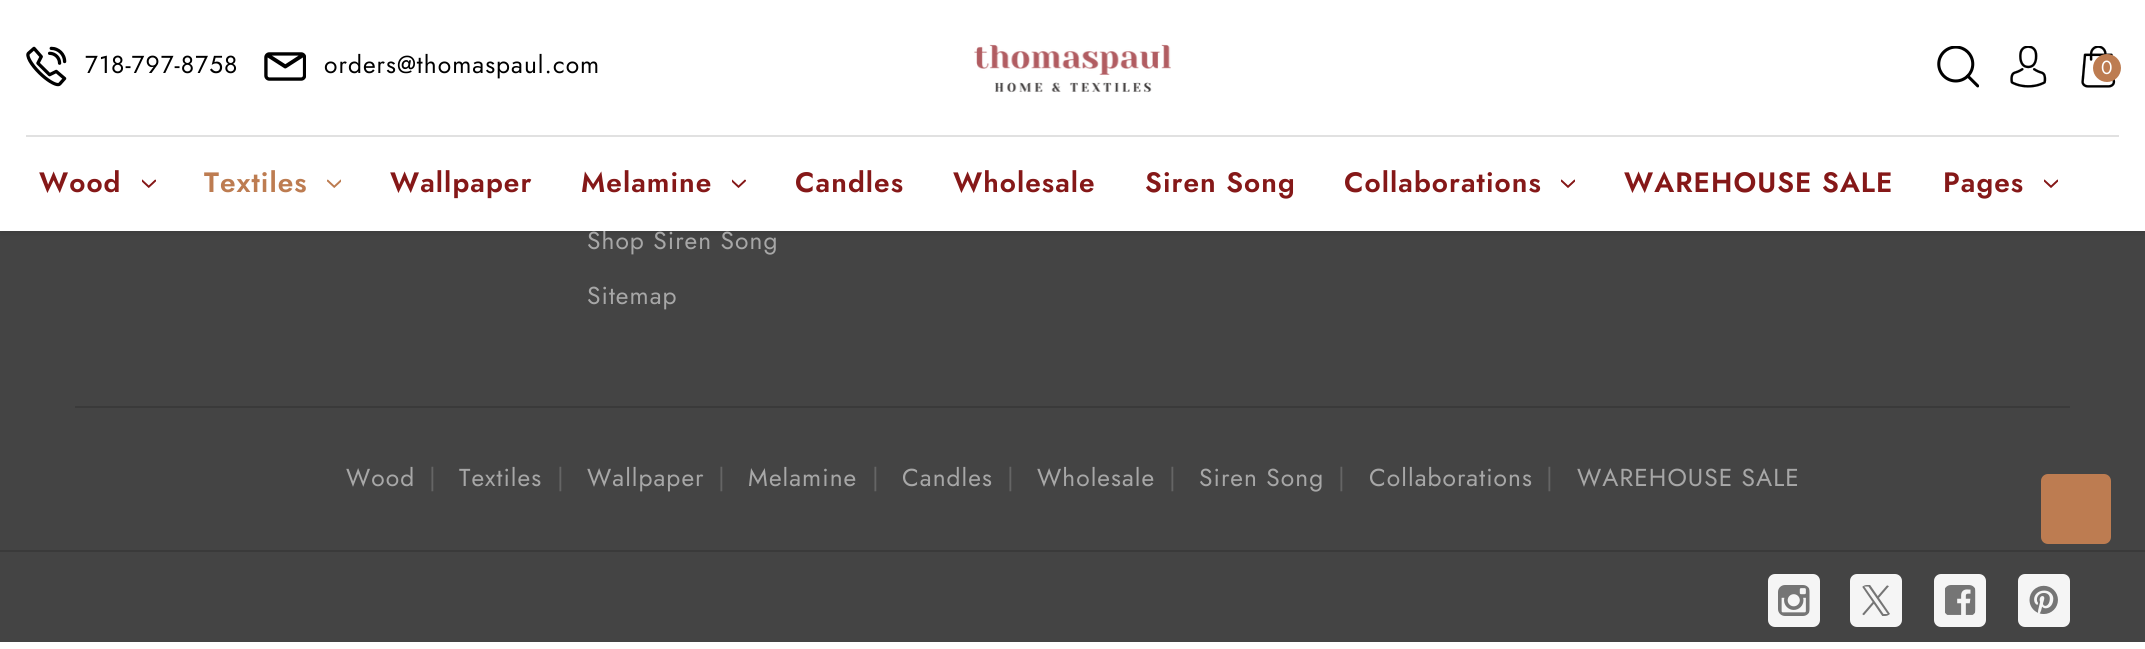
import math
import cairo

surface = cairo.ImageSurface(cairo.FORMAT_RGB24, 2145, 649)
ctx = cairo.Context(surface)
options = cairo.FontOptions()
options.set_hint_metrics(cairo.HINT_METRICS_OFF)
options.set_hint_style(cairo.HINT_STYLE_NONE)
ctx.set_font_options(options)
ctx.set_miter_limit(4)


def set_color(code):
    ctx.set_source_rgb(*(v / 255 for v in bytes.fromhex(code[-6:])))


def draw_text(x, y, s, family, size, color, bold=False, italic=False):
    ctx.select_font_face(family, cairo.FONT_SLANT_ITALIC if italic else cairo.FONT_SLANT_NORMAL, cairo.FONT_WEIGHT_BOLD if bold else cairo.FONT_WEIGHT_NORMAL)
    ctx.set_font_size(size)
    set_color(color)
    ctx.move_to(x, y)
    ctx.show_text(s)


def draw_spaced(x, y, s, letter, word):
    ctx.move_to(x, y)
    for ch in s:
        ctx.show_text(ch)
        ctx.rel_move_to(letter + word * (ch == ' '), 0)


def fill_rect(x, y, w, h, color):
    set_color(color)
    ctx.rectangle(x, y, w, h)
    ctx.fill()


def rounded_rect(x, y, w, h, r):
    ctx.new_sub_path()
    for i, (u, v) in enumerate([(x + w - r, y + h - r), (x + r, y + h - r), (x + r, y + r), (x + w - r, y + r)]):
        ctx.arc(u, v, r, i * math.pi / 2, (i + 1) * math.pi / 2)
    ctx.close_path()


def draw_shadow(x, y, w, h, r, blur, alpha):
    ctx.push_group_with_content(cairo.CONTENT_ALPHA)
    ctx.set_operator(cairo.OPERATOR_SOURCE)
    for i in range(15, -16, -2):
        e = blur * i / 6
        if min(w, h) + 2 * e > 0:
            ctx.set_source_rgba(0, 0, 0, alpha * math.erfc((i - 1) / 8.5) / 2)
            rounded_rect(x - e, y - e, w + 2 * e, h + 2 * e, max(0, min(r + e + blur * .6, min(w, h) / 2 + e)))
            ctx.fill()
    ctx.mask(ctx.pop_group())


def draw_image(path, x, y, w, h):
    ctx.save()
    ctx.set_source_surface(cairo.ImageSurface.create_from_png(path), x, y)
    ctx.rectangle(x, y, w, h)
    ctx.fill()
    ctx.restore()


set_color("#ffffff")
ctx.paint()
fill_rect(0, 231, 2145, 411, "#444444")
set_color("#000000")
draw_shadow(0, 0, 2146, 231, 0, 4.5, 0.18)
ctx.select_font_face("Jost")
ctx.set_font_size(24.5)
set_color("#a7a7a7")
draw_spaced(587, 249, "Shop Siren Song", 1.05, 0)
fill_rect(0, 0, 2145, 231, "#ffffff")
draw_image("assets/img1.png", 26, 46, 41, 41)
set_color("#000000")
draw_spaced(85, 73, "718-797-8758", 1.05, 0)
draw_image("assets/img2.png", 264, 52, 42, 29)
draw_spaced(324, 73, "orders@thomaspaul.com", 1.05, 0)
draw_image("assets/img3.png", 974, 44, 197, 49)
draw_image("assets/img4.png", 1937, 46, 42, 42)
draw_image("assets/img5.png", 2010, 46, 37, 42)
draw_image("assets/img6.png", 2081, 46, 35, 42)
set_color("#bd7c51")
ctx.arc(2107, 68, 14, 0, 2 * math.pi)
ctx.fill()
draw_text(2101, 74, "0", "Jost", 19, "#ffffff")
fill_rect(26, 135, 2093, 2, "#e1e1e1")
ctx.select_font_face("Jost SemiBold")
ctx.set_font_size(28)
set_color("#851818")
draw_spaced(39, 192, "Wood", 1.05, 0)
draw_image("assets/img7.png", 142, 179, 14, 9)
set_color("#bd7c51")
draw_spaced(204, 192, "Textiles", 1.05, 0)
draw_image("assets/img8.png", 327, 179, 14, 9)
set_color("#851818")
draw_spaced(390, 192, "Wallpaper", 1.05, 0)
draw_spaced(581, 192, "Melamine", 1.05, 0)
draw_image("assets/img9.png", 732, 179, 14, 9)
draw_spaced(795, 192, "Candles", 1.05, 0)
draw_spaced(953, 192, "Wholesale", 1.05, 0)
draw_spaced(1145, 192, "Siren Song", 1.05, 0)
draw_spaced(1344, 192, "Collaborations", 1.05, 0)
draw_image("assets/img10.png", 1561, 179, 14, 9)
draw_spaced(1624, 192, "WAREHOUSE SALE", 1.05, 0)
draw_spaced(1943, 192, "Pages", 1.05, 0)
draw_image("assets/img10.png", 2044, 179, 14, 9)
ctx.select_font_face("Jost")
ctx.set_font_size(24.5)
set_color("#a7a7a7")
draw_spaced(587, 304, "Sitemap", 1.05, 0)
fill_rect(75, 406, 1995, 2, "#3a3a3a")
set_color("#a7a7a7")
draw_spaced(346, 486, "Wood", 1.05, 0)
set_color("#656565")
draw_spaced(429, 486, "|", 1.05, 0)
set_color("#a7a7a7")
draw_spaced(459, 486, "Textiles", 1.05, 0)
set_color("#656565")
draw_spaced(557, 486, "|", 1.05, 0)
set_color("#a7a7a7")
draw_spaced(587, 486, "Wallpaper", 1.05, 0)
set_color("#656565")
draw_spaced(718, 486, "|", 1.05, 0)
set_color("#a7a7a7")
draw_spaced(748, 486, "Melamine", 1.05, 0)
set_color("#656565")
draw_spaced(872, 486, "|", 1.05, 0)
set_color("#a7a7a7")
draw_spaced(902, 486, "Candles", 1.05, 0)
set_color("#656565")
draw_spaced(1007, 486, "|", 1.05, 0)
set_color("#a7a7a7")
draw_spaced(1037, 486, "Wholesale", 1.05, 0)
set_color("#656565")
draw_spaced(1169, 486, "|", 1.05, 0)
set_color("#a7a7a7")
draw_spaced(1199, 486, "Siren Song", 1.05, 0)
set_color("#656565")
draw_spaced(1338, 486, "|", 1.05, 0)
set_color("#a7a7a7")
draw_spaced(1369, 486, "Collaborations", 1.05, 0)
set_color("#656565")
draw_spaced(1546, 486, "|", 1.05, 0)
set_color("#a7a7a7")
draw_spaced(1577, 486, "WAREHOUSE SALE", 1.05, 0)
set_color("#bd7c51")
rounded_rect(2041, 474, 70, 70, 7)
ctx.fill()
fill_rect(0, 550, 2145, 2, "#3a3a3a")
set_color("#f5f5f5")
rounded_rect(1768, 574, 52, 53, 7)
ctx.fill()
draw_image("assets/img11.png", 1778, 585, 32, 31)
rounded_rect(1850, 574, 52, 53, 7)
ctx.fill()
draw_image("assets/img12.png", 1862, 585, 28, 31)
rounded_rect(1934, 574, 52, 53, 7)
ctx.fill()
draw_image("assets/img13.png", 1945, 585, 31, 30)
rounded_rect(2018, 574, 52, 53, 7)
ctx.fill()
draw_image("assets/img14.png", 2029, 585, 29, 29)
surface.write_to_png("output.png")
